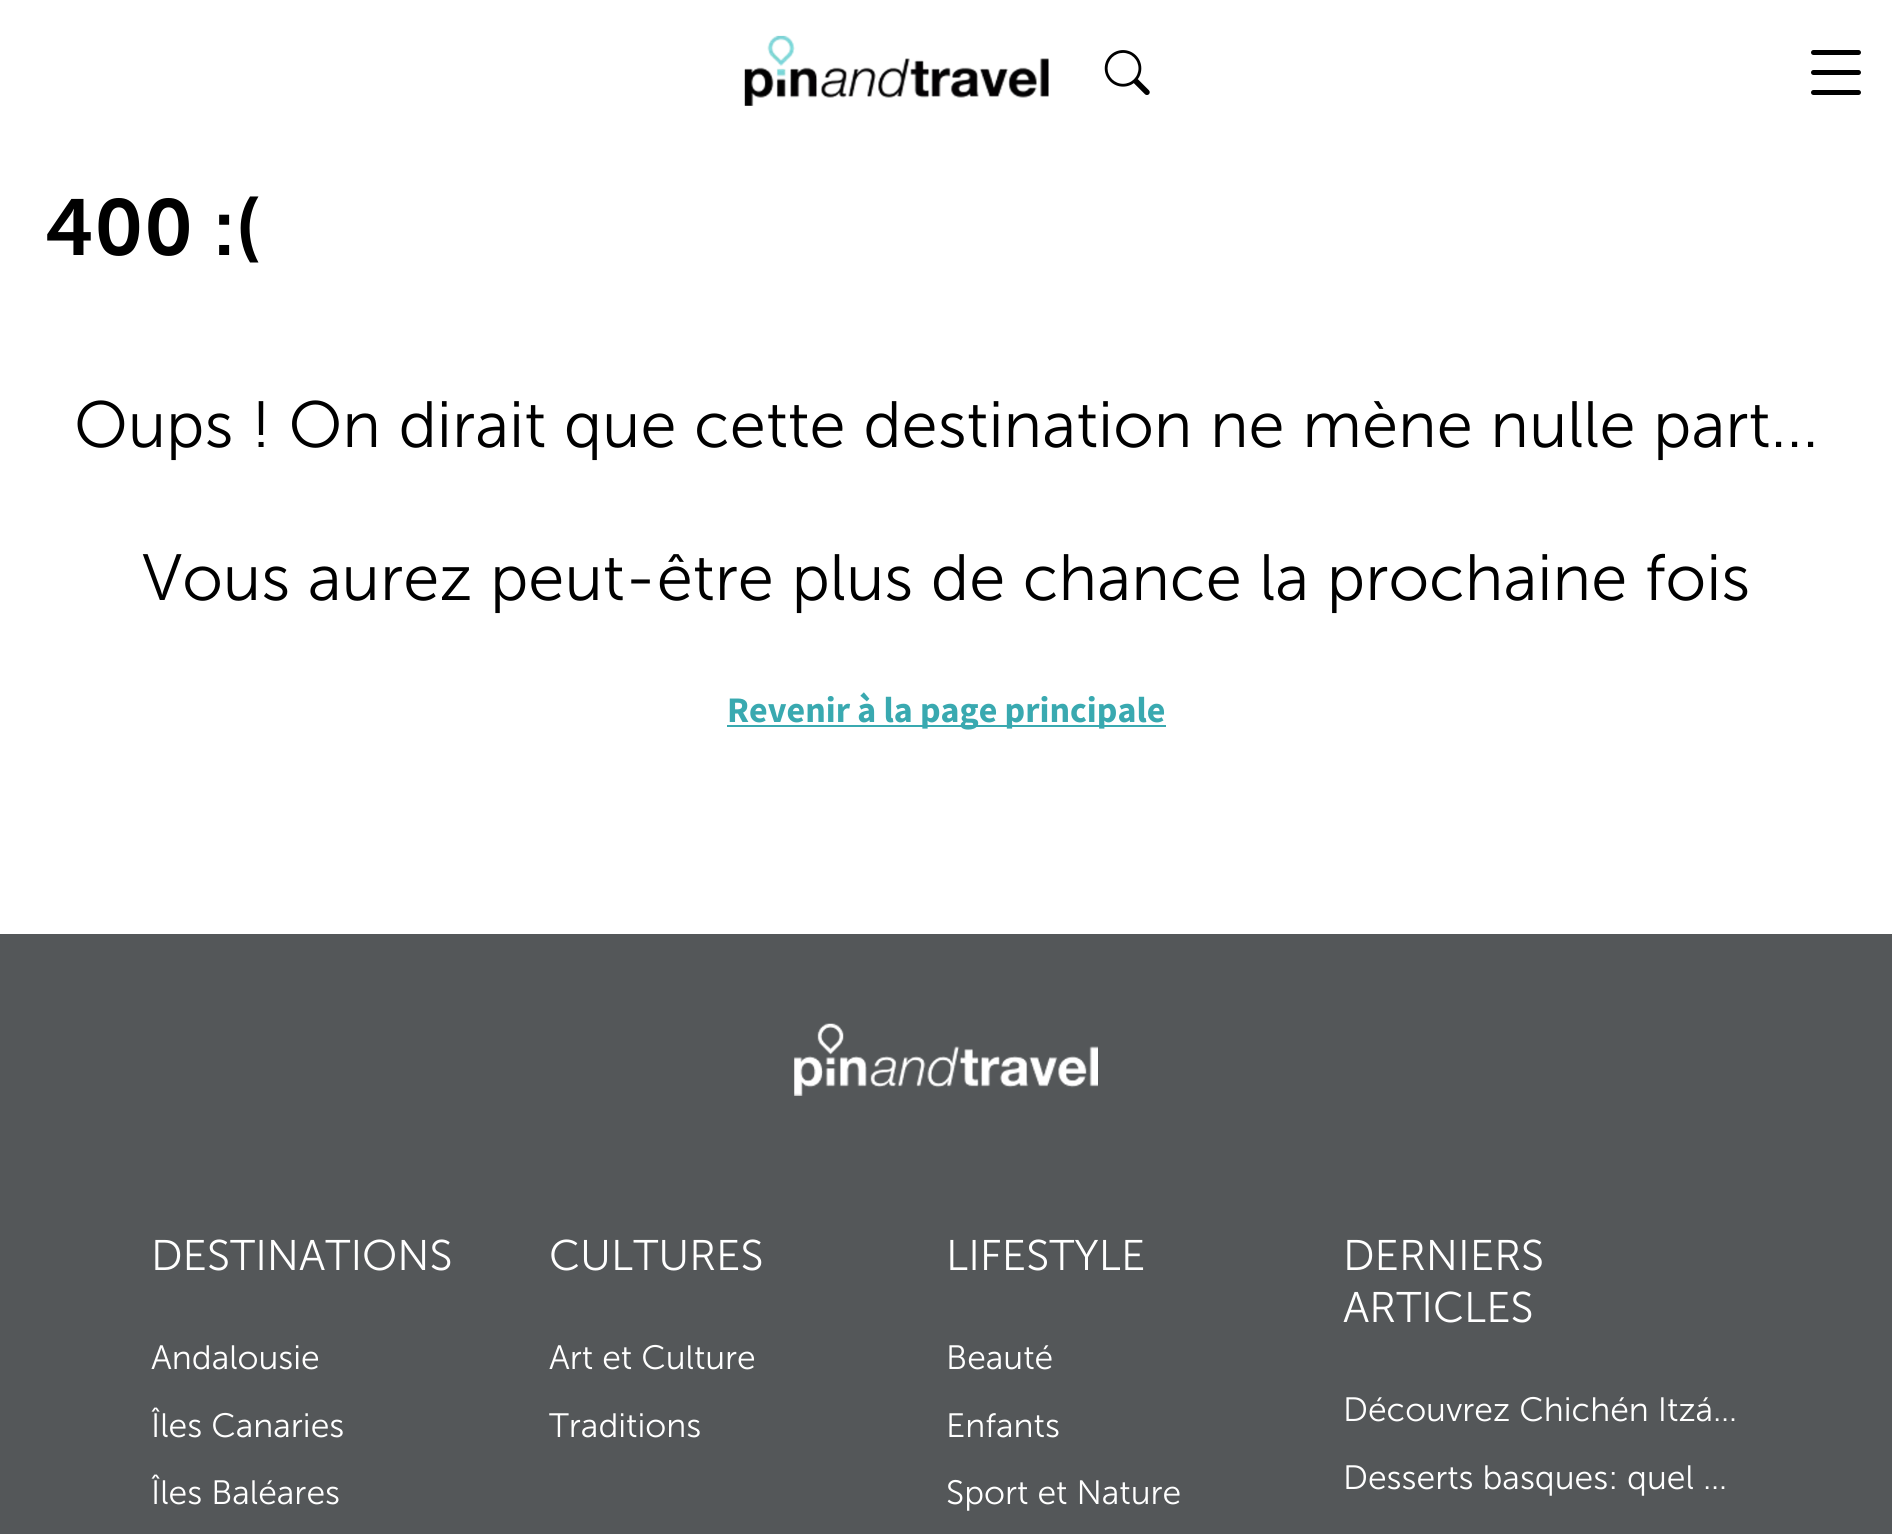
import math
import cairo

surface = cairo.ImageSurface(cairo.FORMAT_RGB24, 1892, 1534)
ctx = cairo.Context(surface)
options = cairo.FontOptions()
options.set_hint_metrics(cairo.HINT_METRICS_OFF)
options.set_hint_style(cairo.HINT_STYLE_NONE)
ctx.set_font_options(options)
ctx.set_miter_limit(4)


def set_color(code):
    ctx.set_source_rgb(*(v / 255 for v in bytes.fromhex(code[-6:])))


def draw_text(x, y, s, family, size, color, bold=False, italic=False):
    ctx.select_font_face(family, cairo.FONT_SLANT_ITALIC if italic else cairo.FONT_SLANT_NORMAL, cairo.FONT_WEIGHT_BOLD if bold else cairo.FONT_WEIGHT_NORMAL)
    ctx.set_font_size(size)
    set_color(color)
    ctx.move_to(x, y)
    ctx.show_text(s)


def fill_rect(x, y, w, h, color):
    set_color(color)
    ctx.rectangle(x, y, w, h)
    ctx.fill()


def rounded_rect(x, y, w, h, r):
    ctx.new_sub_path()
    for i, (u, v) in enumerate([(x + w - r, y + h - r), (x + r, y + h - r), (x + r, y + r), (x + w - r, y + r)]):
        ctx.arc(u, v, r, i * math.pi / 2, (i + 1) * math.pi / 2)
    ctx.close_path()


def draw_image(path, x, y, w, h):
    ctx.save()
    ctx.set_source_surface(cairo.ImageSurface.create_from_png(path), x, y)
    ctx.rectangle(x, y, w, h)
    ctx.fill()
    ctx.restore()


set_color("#ffffff")
ctx.paint()
draw_image("assets/img1.png", 744, 35, 305, 71)
draw_image("assets/img2.png", 1104, 50, 46, 45)
set_color("#000000")
rounded_rect(1811, 50, 50, 5, 2.5)
ctx.fill()
rounded_rect(1811, 70, 50, 5, 2.5)
ctx.fill()
rounded_rect(1811, 90, 50, 5, 2.5)
ctx.fill()
draw_text(45, 255, "400 :(", "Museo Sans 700 SemiBold", 79, "#000000")
draw_text(74, 447, "Oups ! On dirait que cette destination ne mène nulle part...", "Museo Sans Light", 65.25, "#000000")
draw_text(142, 600, "Vous aurez peut-être plus de chance la prochaine fois", "Museo Sans Light", 65.25, "#000000")
fill_rect(727, 725, 439, 2, "#39a9b0")
draw_text(727, 722, "Revenir à la page principale", "Source Sans Pro", 36, "#39a9b0", bold=True)
fill_rect(0, 934, 1892, 600, "#545759")
draw_image("assets/img3.png", 794, 1023, 304, 73)
draw_text(151, 1270, "DESTINATIONS", "Museo Sans Light", 42.75, "#ffffff")
draw_text(151, 1369, "Andalousie", "Museo Sans Light", 33.75, "#ffffff")
draw_text(151, 1437, "Îles Canaries", "Museo Sans Light", 33.75, "#ffffff")
draw_text(151, 1504, "Îles Baléares", "Museo Sans Light", 33.75, "#ffffff")
draw_text(549, 1270, "CULTURES", "Museo Sans Light", 42.75, "#ffffff")
draw_text(549, 1369, "Art et Culture", "Museo Sans Light", 33.75, "#ffffff")
draw_text(549, 1437, "Traditions", "Museo Sans Light", 33.75, "#ffffff")
draw_text(946, 1270, "LIFESTYLE", "Museo Sans Light", 42.75, "#ffffff")
draw_text(946, 1369, "Beauté", "Museo Sans Light", 33.75, "#ffffff")
draw_text(946, 1437, "Enfants", "Museo Sans Light", 33.75, "#ffffff")
draw_text(946, 1504, "Sport et Nature", "Museo Sans Light", 33.75, "#ffffff")
draw_text(1343, 1270, "DERNIERS", "Museo Sans Light", 42.75, "#ffffff")
draw_text(1343, 1322, "ARTICLES", "Museo Sans Light", 42.75, "#ffffff")
draw_text(1343, 1421, "Découvrez Chichén Itzá…", "Museo Sans Light", 33.75, "#ffffff")
draw_text(1343, 1489, "Desserts basques: quel …", "Museo Sans Light", 33.75, "#ffffff")
surface.write_to_png("output.png")
